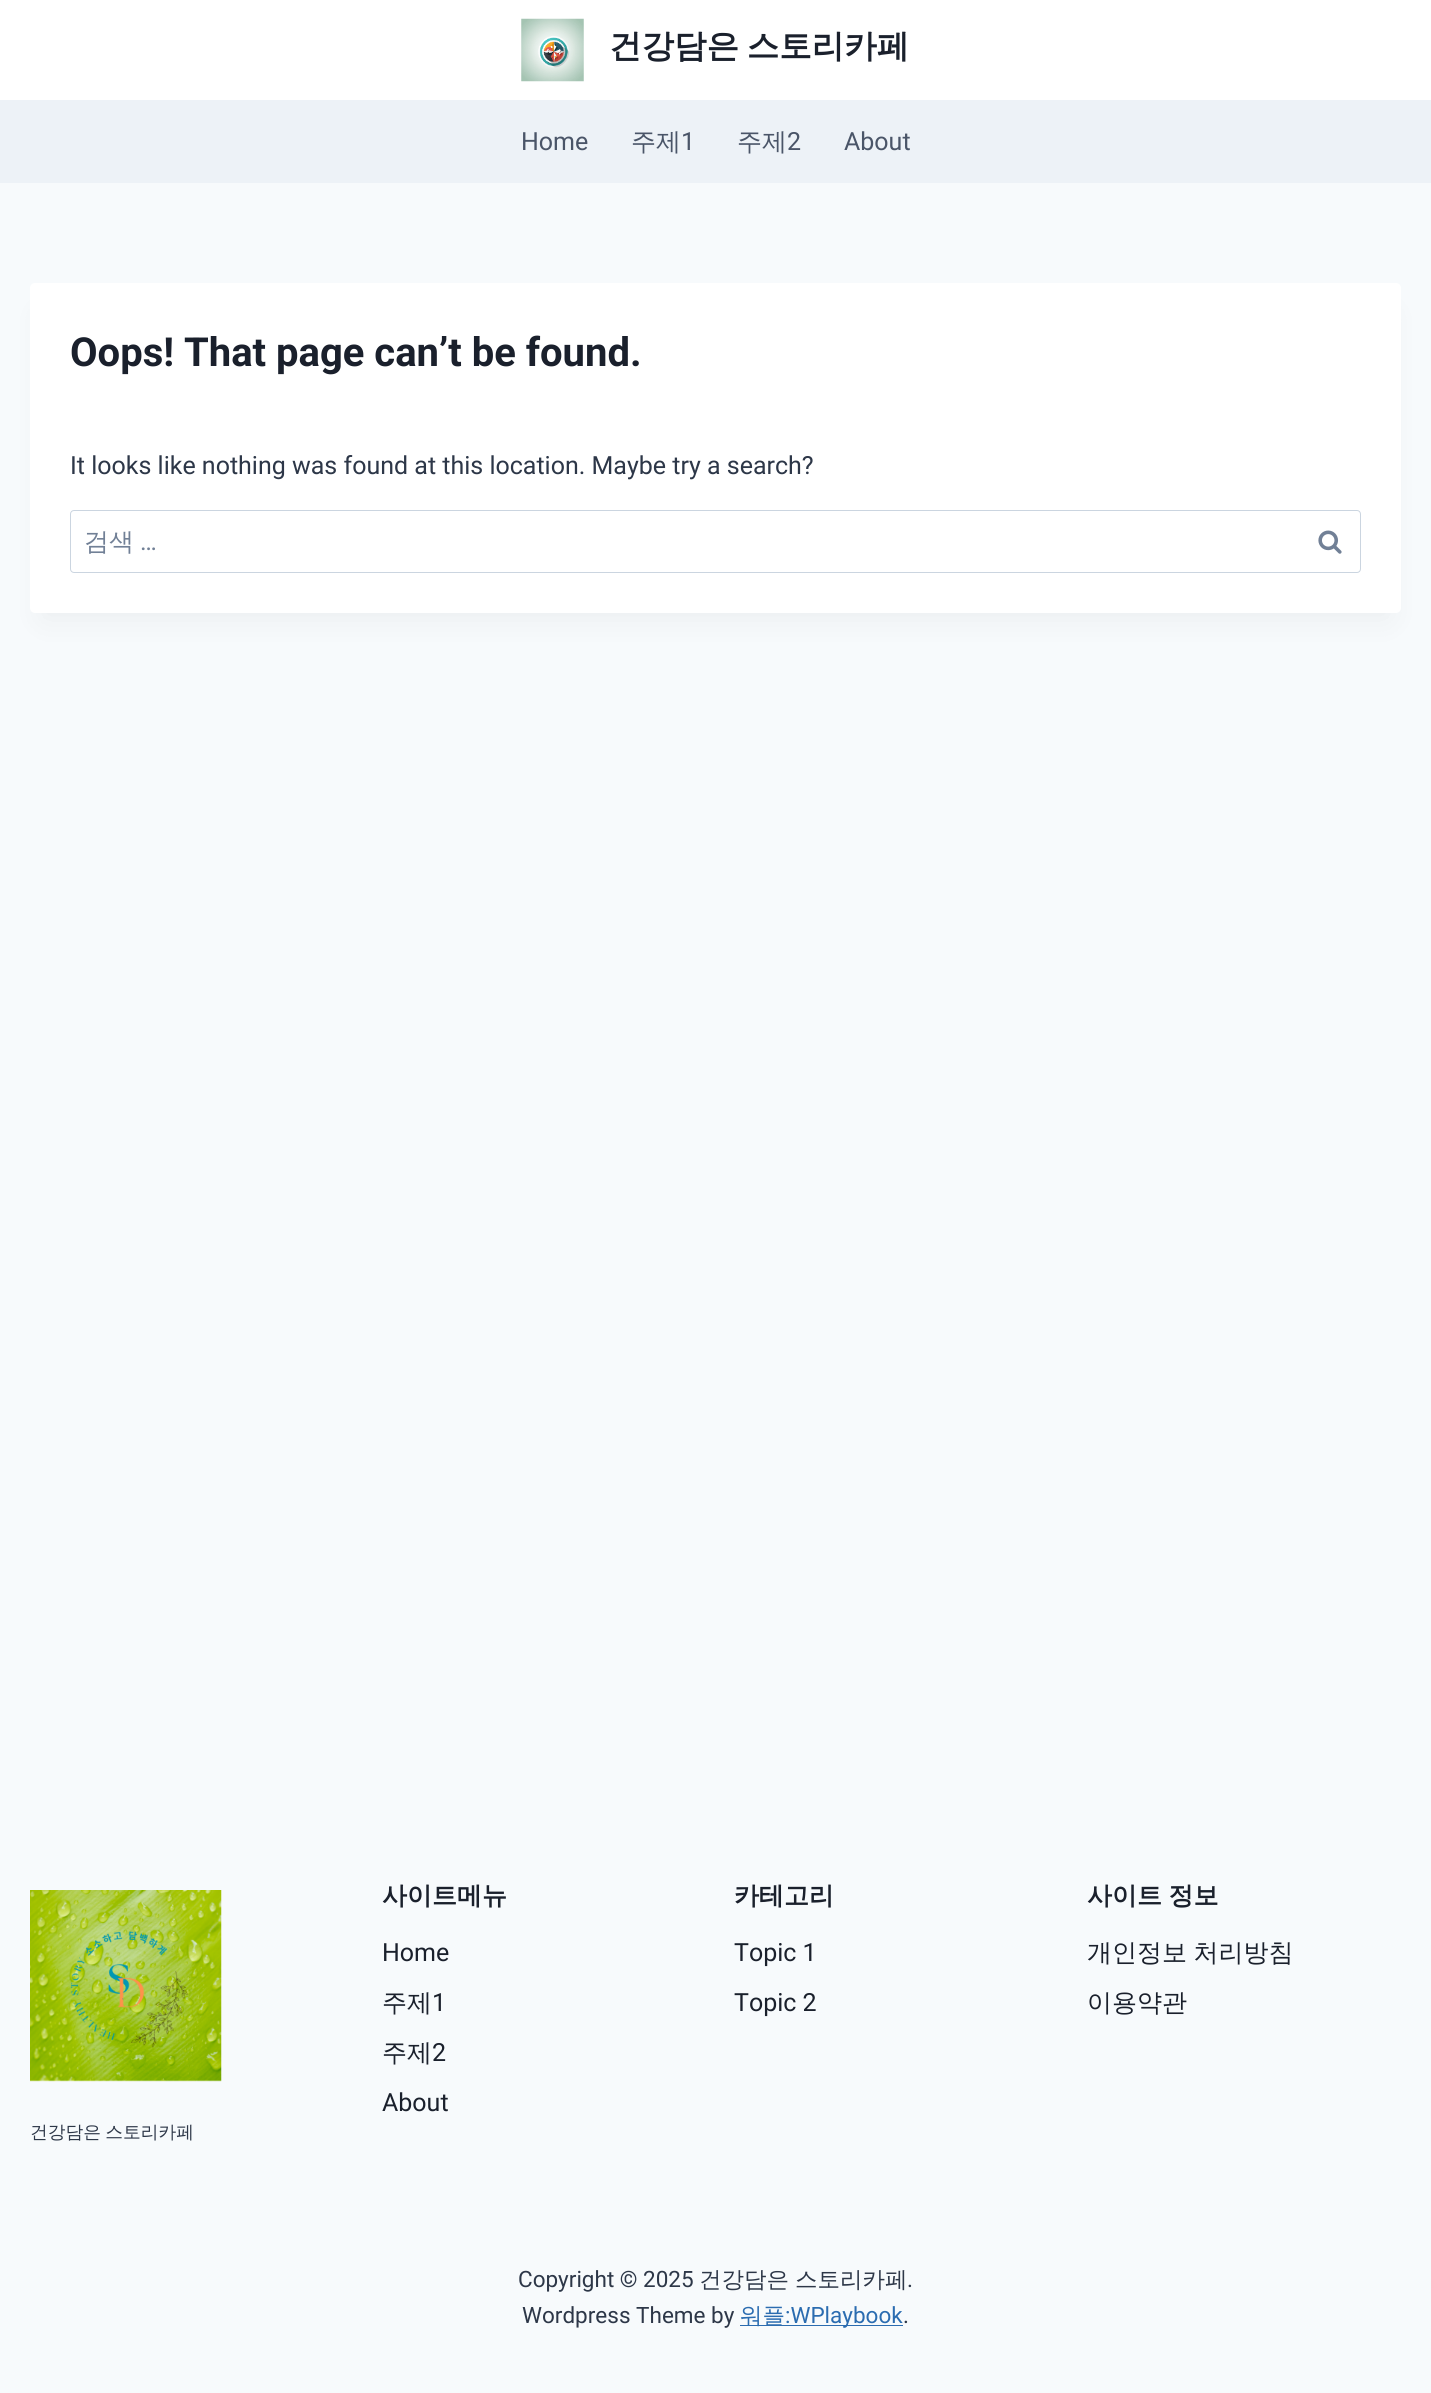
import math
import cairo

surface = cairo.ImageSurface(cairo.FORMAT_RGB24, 1431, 2393)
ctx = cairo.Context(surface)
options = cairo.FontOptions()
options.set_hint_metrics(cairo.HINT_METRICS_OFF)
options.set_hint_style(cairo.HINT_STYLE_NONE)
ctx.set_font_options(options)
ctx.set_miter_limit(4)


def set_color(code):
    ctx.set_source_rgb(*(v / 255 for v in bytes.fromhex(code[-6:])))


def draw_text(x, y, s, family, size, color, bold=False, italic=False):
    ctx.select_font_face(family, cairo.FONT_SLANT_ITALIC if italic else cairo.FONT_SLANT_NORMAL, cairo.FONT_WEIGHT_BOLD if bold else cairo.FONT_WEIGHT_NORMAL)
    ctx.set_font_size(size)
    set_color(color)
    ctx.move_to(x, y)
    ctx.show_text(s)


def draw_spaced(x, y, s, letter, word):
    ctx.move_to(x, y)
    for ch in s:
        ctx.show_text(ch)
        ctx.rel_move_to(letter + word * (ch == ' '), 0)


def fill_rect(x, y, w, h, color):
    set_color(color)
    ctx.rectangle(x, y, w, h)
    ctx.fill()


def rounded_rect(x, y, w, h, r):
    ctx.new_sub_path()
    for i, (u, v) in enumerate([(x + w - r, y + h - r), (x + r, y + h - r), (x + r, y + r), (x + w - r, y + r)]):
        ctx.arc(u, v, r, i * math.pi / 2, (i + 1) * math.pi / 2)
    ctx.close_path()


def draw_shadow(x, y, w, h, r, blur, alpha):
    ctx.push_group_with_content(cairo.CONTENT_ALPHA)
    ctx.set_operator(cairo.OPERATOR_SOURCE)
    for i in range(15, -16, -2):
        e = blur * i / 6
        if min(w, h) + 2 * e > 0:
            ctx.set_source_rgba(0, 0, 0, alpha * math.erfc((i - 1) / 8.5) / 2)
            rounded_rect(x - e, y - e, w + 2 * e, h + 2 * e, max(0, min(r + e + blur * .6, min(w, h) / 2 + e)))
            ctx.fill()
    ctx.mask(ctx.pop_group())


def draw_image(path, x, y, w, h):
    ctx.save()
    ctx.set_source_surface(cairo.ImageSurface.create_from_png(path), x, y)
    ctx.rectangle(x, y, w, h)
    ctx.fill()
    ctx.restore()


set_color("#f7fafc")
ctx.paint()
fill_rect(0, 0, 1431, 100, "#ffffff")
draw_image("assets/img1.png", 521, 18, 63, 64)
ctx.select_font_face("WenQuanYi Zen Hei", cairo.FONT_SLANT_NORMAL, cairo.FONT_WEIGHT_BOLD)
ctx.set_font_size(32.5)
set_color("#1a202c")
draw_spaced(609, 57, "건강담은 스토리카페", 0, -2)
fill_rect(0, 100, 1431, 83, "#edf2f7")
draw_text(521, 150, "Home", "Roboto", 25, "#4a5568")
draw_text(631, 150, "주제", "WenQuanYi Zen Hei Medium", 25, "#4a5568")
draw_text(681, 150, "1", "Roboto", 25, "#4a5568")
draw_text(737, 150, "주제", "WenQuanYi Zen Hei Medium", 25, "#4a5568")
draw_text(787, 150, "2", "Roboto", 25, "#4a5568")
draw_text(844, 150, "About", "Roboto", 25, "#4a5568")
set_color("#000000")
draw_shadow(43, 314, 1346, 305, 0, 15.5, 0.05)
set_color("#ffffff")
rounded_rect(30, 283, 1371, 330, 5)
ctx.fill()
draw_text(70, 366, "Oops! That page can’t be found.", "Roboto", 40, "#1a202c", bold=True)
draw_text(70, 474, "It looks like nothing was found at this location. Maybe try a search?", "Roboto", 25, "#2d3748")
rounded_rect(70.5, 510.5, 1290, 62, 3.5)
set_color("#cbd5e0")
ctx.set_line_width(1)
ctx.stroke()
draw_text(84, 550, "검색", "WenQuanYi Zen Hei Medium", 25, "#718096")
draw_text(140, 550, "…", "Roboto", 25, "#718096")
draw_image("assets/img2.png", 1318, 530, 24, 24)
draw_text(382, 1904, "사이트메뉴", "WenQuanYi Zen Hei", 25, "#1a202c", bold=True)
draw_text(382, 1961, "Home", "Roboto", 25, "#1a202c")
draw_text(382, 2011, "주제", "WenQuanYi Zen Hei Medium", 25, "#1a202c")
draw_text(432, 2011, "1", "Roboto", 25, "#1a202c")
draw_text(382, 2061, "주제", "WenQuanYi Zen Hei Medium", 25, "#1a202c")
draw_text(432, 2061, "2", "Roboto", 25, "#1a202c")
draw_text(382, 2111, "About", "Roboto", 25, "#1a202c")
draw_text(734, 1904, "카테고리", "WenQuanYi Zen Hei", 25, "#1a202c", bold=True)
draw_text(734, 1961, "Topic 1", "Roboto", 25, "#1a202c")
draw_text(734, 2011, "Topic 2", "Roboto", 25, "#1a202c")
ctx.select_font_face("WenQuanYi Zen Hei", cairo.FONT_SLANT_NORMAL, cairo.FONT_WEIGHT_BOLD)
draw_spaced(1087, 1904, "사이트 정보", 0, -1)
ctx.select_font_face("WenQuanYi Zen Hei Medium")
draw_spaced(1087, 1961, "개인정보 처리방침", 0, -1)
draw_text(1087, 2011, "이용약관", "WenQuanYi Zen Hei Medium", 25, "#1a202c")
draw_image("assets/img3.png", 30, 1890, 192, 192)
ctx.set_font_size(17.75)
set_color("#2d3748")
draw_spaced(30, 2138, "건강담은 스토리카페", 0, -1)
draw_text(518, 2287, "Copyright © 2025", "Roboto", 22.5, "#2d3748")
draw_text(699, 2287, "건강담은", "WenQuanYi Zen Hei Medium", 22.5, "#2d3748")
draw_text(795, 2287, "스토리카페", "WenQuanYi Zen Hei Medium", 22.5, "#2d3748")
draw_text(907, 2287, ".", "Roboto", 22.5, "#2d3748")
draw_text(522, 2323, "Wordpress Theme by", "Roboto", 22.5, "#2d3748")
fill_rect(740, 2325, 163, 1, "#2b6cb0")
draw_text(740, 2323, "워플", "WenQuanYi Zen Hei Medium", 22.5, "#2b6cb0")
draw_text(785, 2323, ":WPlaybook", "Roboto", 22.5, "#2b6cb0")
draw_text(903, 2323, ".", "Roboto", 22.5, "#2d3748")
surface.write_to_png("output.png")
